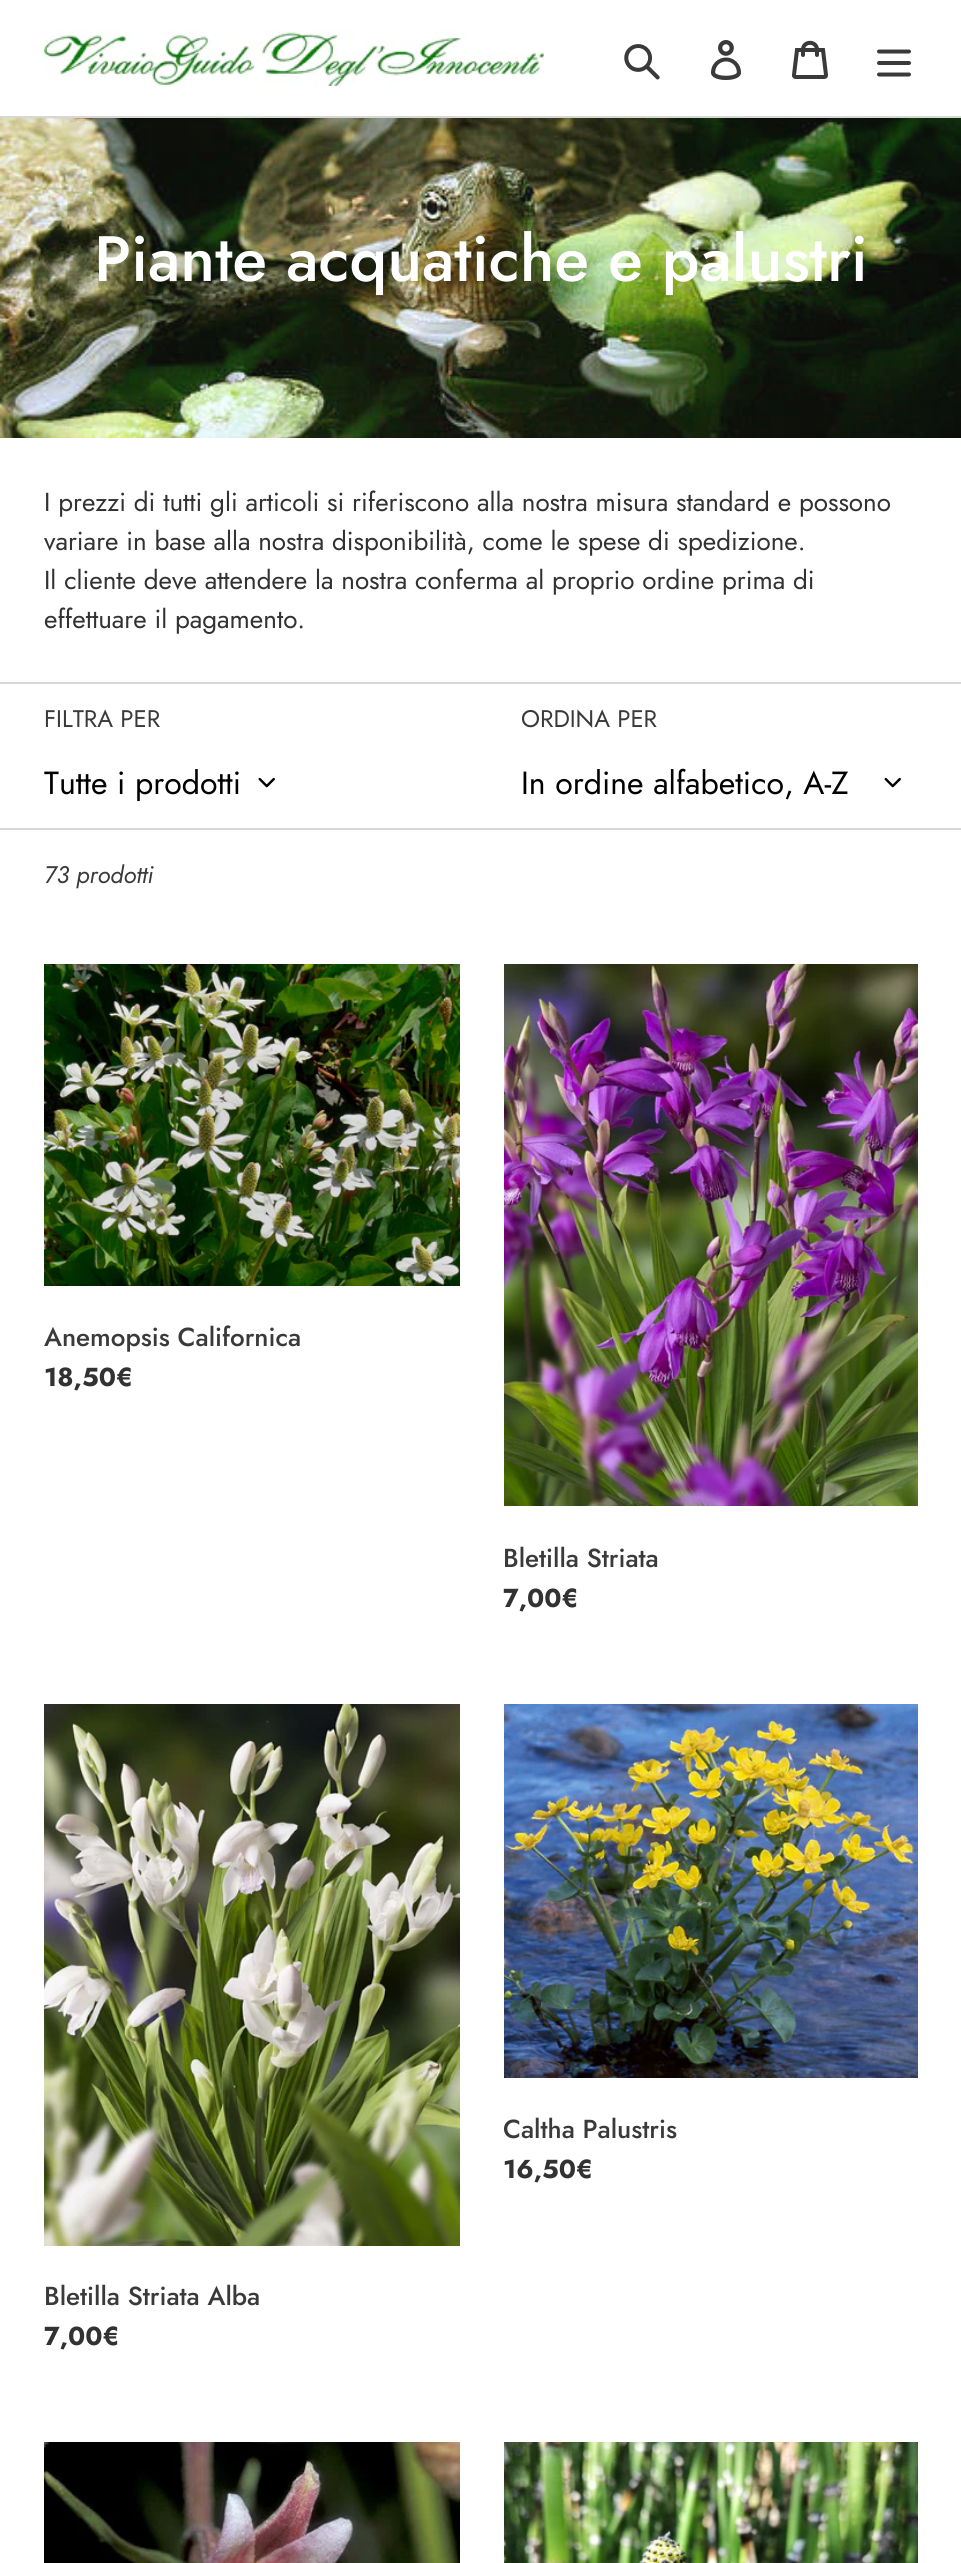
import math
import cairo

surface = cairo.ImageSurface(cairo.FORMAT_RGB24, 961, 2563)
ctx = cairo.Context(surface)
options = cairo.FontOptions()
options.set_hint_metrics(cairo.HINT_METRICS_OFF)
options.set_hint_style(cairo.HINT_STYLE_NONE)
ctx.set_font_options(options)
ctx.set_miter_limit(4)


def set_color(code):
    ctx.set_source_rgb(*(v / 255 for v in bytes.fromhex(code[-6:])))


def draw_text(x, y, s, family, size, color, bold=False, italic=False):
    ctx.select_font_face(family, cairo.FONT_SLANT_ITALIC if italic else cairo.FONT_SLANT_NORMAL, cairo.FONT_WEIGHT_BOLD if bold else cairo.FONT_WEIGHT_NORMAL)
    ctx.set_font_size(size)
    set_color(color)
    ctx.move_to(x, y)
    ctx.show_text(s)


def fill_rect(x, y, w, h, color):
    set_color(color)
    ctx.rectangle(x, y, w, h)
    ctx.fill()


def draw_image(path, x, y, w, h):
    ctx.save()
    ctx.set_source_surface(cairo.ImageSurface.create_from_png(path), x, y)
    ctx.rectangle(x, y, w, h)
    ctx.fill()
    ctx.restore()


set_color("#ffffff")
ctx.paint()
fill_rect(0, 116, 961, 2, "#d7d7d7")
draw_image("assets/img1.png", 44, 30, 500, 56)
draw_image("assets/img2.png", 624, 44, 36, 36)
draw_image("assets/img3.png", 711, 40, 31, 40)
draw_image("assets/img4.png", 792, 40, 36, 39)
draw_image("assets/img5.png", 877, 49, 34, 28)
draw_image("assets/img6.png", 0, 118, 961, 320)
draw_text(94, 281, "Piante acquatiche e palustri", "Jost Medium", 64, "#ffffff")
draw_text(44, 511, "I prezzi di tutti gli articoli si riferiscono alla nostra misura standard e possono", "Jost", 26, "#333232")
draw_text(44, 550, "variare in base alla nostra disponibilità, come le spese di spedizione.", "Jost", 26, "#333232")
draw_text(44, 589, "Il cliente deve attendere la nostra conferma al proprio ordine prima di", "Jost", 26, "#333232")
draw_text(44, 628, "effettuare il pagamento.", "Jost", 26, "#333232")
fill_rect(0, 682, 961, 2, "#d7d7d7")
draw_text(44, 727, "FILTRA PER", "Jost", 24, "#3a3a3a")
draw_text(44, 794, "Tutte i prodotti", "Jost", 32, "#000000")
draw_image("assets/img7.png", 258, 777, 17, 11)
draw_text(521, 727, "ORDINA PER", "Jost", 24, "#3a3a3a")
draw_text(521, 794, "In ordine alfabetico, A-Z", "Jost", 32, "#000000")
draw_image("assets/img7.png", 884, 777, 17, 11)
fill_rect(0, 828, 961, 2, "#d7d7d7")
draw_text(44, 883, "73 prodotti", "Jost", 24, "#3a3a3a", italic=True)
draw_image("assets/img8.png", 44, 964, 416, 322)
draw_text(44, 1346, "Anemopsis Californica", "Jost Medium", 26, "#3a3a3a")
draw_text(44, 1386, "18,50€", "Jost", 26, "#333232", bold=True)
draw_image("assets/img9.png", 504, 964, 414, 542)
draw_text(503, 1567, "Bletilla Striata", "Jost Medium", 26, "#3a3a3a")
draw_text(503, 1607, "7,00€", "Jost", 26, "#333232", bold=True)
draw_image("assets/img10.png", 504, 1704, 414, 374)
draw_text(503, 2138, "Caltha Palustris", "Jost Medium", 26, "#3a3a3a")
draw_text(503, 2178, "16,50€", "Jost", 26, "#333232", bold=True)
draw_image("assets/img11.png", 44, 1704, 416, 542)
draw_text(44, 2305, "Bletilla Striata Alba", "Jost Medium", 26, "#3a3a3a")
draw_text(44, 2345, "7,00€", "Jost", 26, "#333232", bold=True)
draw_image("assets/img12.png", 44, 2442, 416, 121)
draw_image("assets/img13.png", 504, 2442, 414, 121)
surface.write_to_png("output.png")
